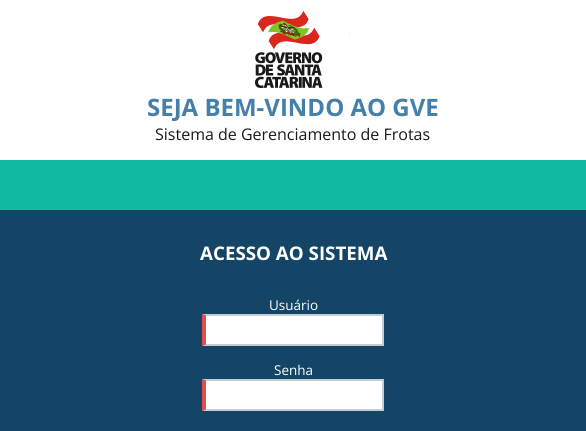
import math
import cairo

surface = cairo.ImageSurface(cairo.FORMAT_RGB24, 586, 431)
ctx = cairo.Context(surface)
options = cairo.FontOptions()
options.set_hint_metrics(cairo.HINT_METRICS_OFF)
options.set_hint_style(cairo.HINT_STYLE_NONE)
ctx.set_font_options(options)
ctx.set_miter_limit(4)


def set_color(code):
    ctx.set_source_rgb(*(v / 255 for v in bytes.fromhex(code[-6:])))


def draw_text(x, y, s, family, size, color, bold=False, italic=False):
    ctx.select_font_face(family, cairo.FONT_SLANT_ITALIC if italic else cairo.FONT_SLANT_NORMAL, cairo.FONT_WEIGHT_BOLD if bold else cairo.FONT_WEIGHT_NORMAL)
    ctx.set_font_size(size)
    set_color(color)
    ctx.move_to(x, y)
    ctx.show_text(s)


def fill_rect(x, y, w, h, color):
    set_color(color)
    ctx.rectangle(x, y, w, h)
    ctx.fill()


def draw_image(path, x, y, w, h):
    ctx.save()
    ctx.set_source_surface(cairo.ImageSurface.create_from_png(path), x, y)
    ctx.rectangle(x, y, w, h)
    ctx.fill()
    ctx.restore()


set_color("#ffffff")
ctx.paint()
draw_image("assets/img1.png", 255, 10, 95, 78)
draw_text(147, 116, "SEJA BEM-VINDO AO GVE", "Open Sans", 24, "#4580ab", bold=True)
draw_text(155, 140, "Sistema de Gerenciamento de Frotas", "Open Sans", 16, "#191919")
fill_rect(0, 160, 586, 50, "#12b9a1")
fill_rect(0, 210, 586, 221, "#144466")
draw_text(200, 260, "ACESSO AO SISTEMA", "Open Sans", 18.75, "#ffffff", bold=True)
draw_text(269, 310, "Usuário", "Open Sans", 13.5, "#ffffff")
fill_rect(206, 316, 176, 28, "#ffffff")
set_color("#c4cdd6")
ctx.new_path()
ctx.move_to(202, 314)
ctx.line_to(384, 314)
ctx.line_to(382, 316)
ctx.line_to(206, 316)
ctx.close_path()
ctx.fill()
fill_rect(382, 314, 2, 32, "#c4cdd6")
ctx.new_path()
ctx.move_to(384, 346)
ctx.line_to(202, 346)
ctx.line_to(206, 344)
ctx.line_to(382, 344)
ctx.close_path()
ctx.fill()
set_color("#de4f4f")
ctx.new_path()
ctx.move_to(202, 346)
ctx.line_to(202, 314)
ctx.line_to(206, 316)
ctx.line_to(206, 344)
ctx.close_path()
ctx.fill()
draw_text(274, 375, "Senha", "Open Sans", 13.5, "#ffffff")
fill_rect(206, 381, 176, 28, "#ffffff")
set_color("#c4cdd6")
ctx.new_path()
ctx.move_to(202, 379)
ctx.line_to(384, 379)
ctx.line_to(382, 381)
ctx.line_to(206, 381)
ctx.close_path()
ctx.fill()
fill_rect(382, 379, 2, 32, "#c4cdd6")
ctx.new_path()
ctx.move_to(384, 411)
ctx.line_to(202, 411)
ctx.line_to(206, 409)
ctx.line_to(382, 409)
ctx.close_path()
ctx.fill()
set_color("#de4f4f")
ctx.new_path()
ctx.move_to(202, 411)
ctx.line_to(202, 379)
ctx.line_to(206, 381)
ctx.line_to(206, 409)
ctx.close_path()
ctx.fill()
surface.write_to_png("output.png")
